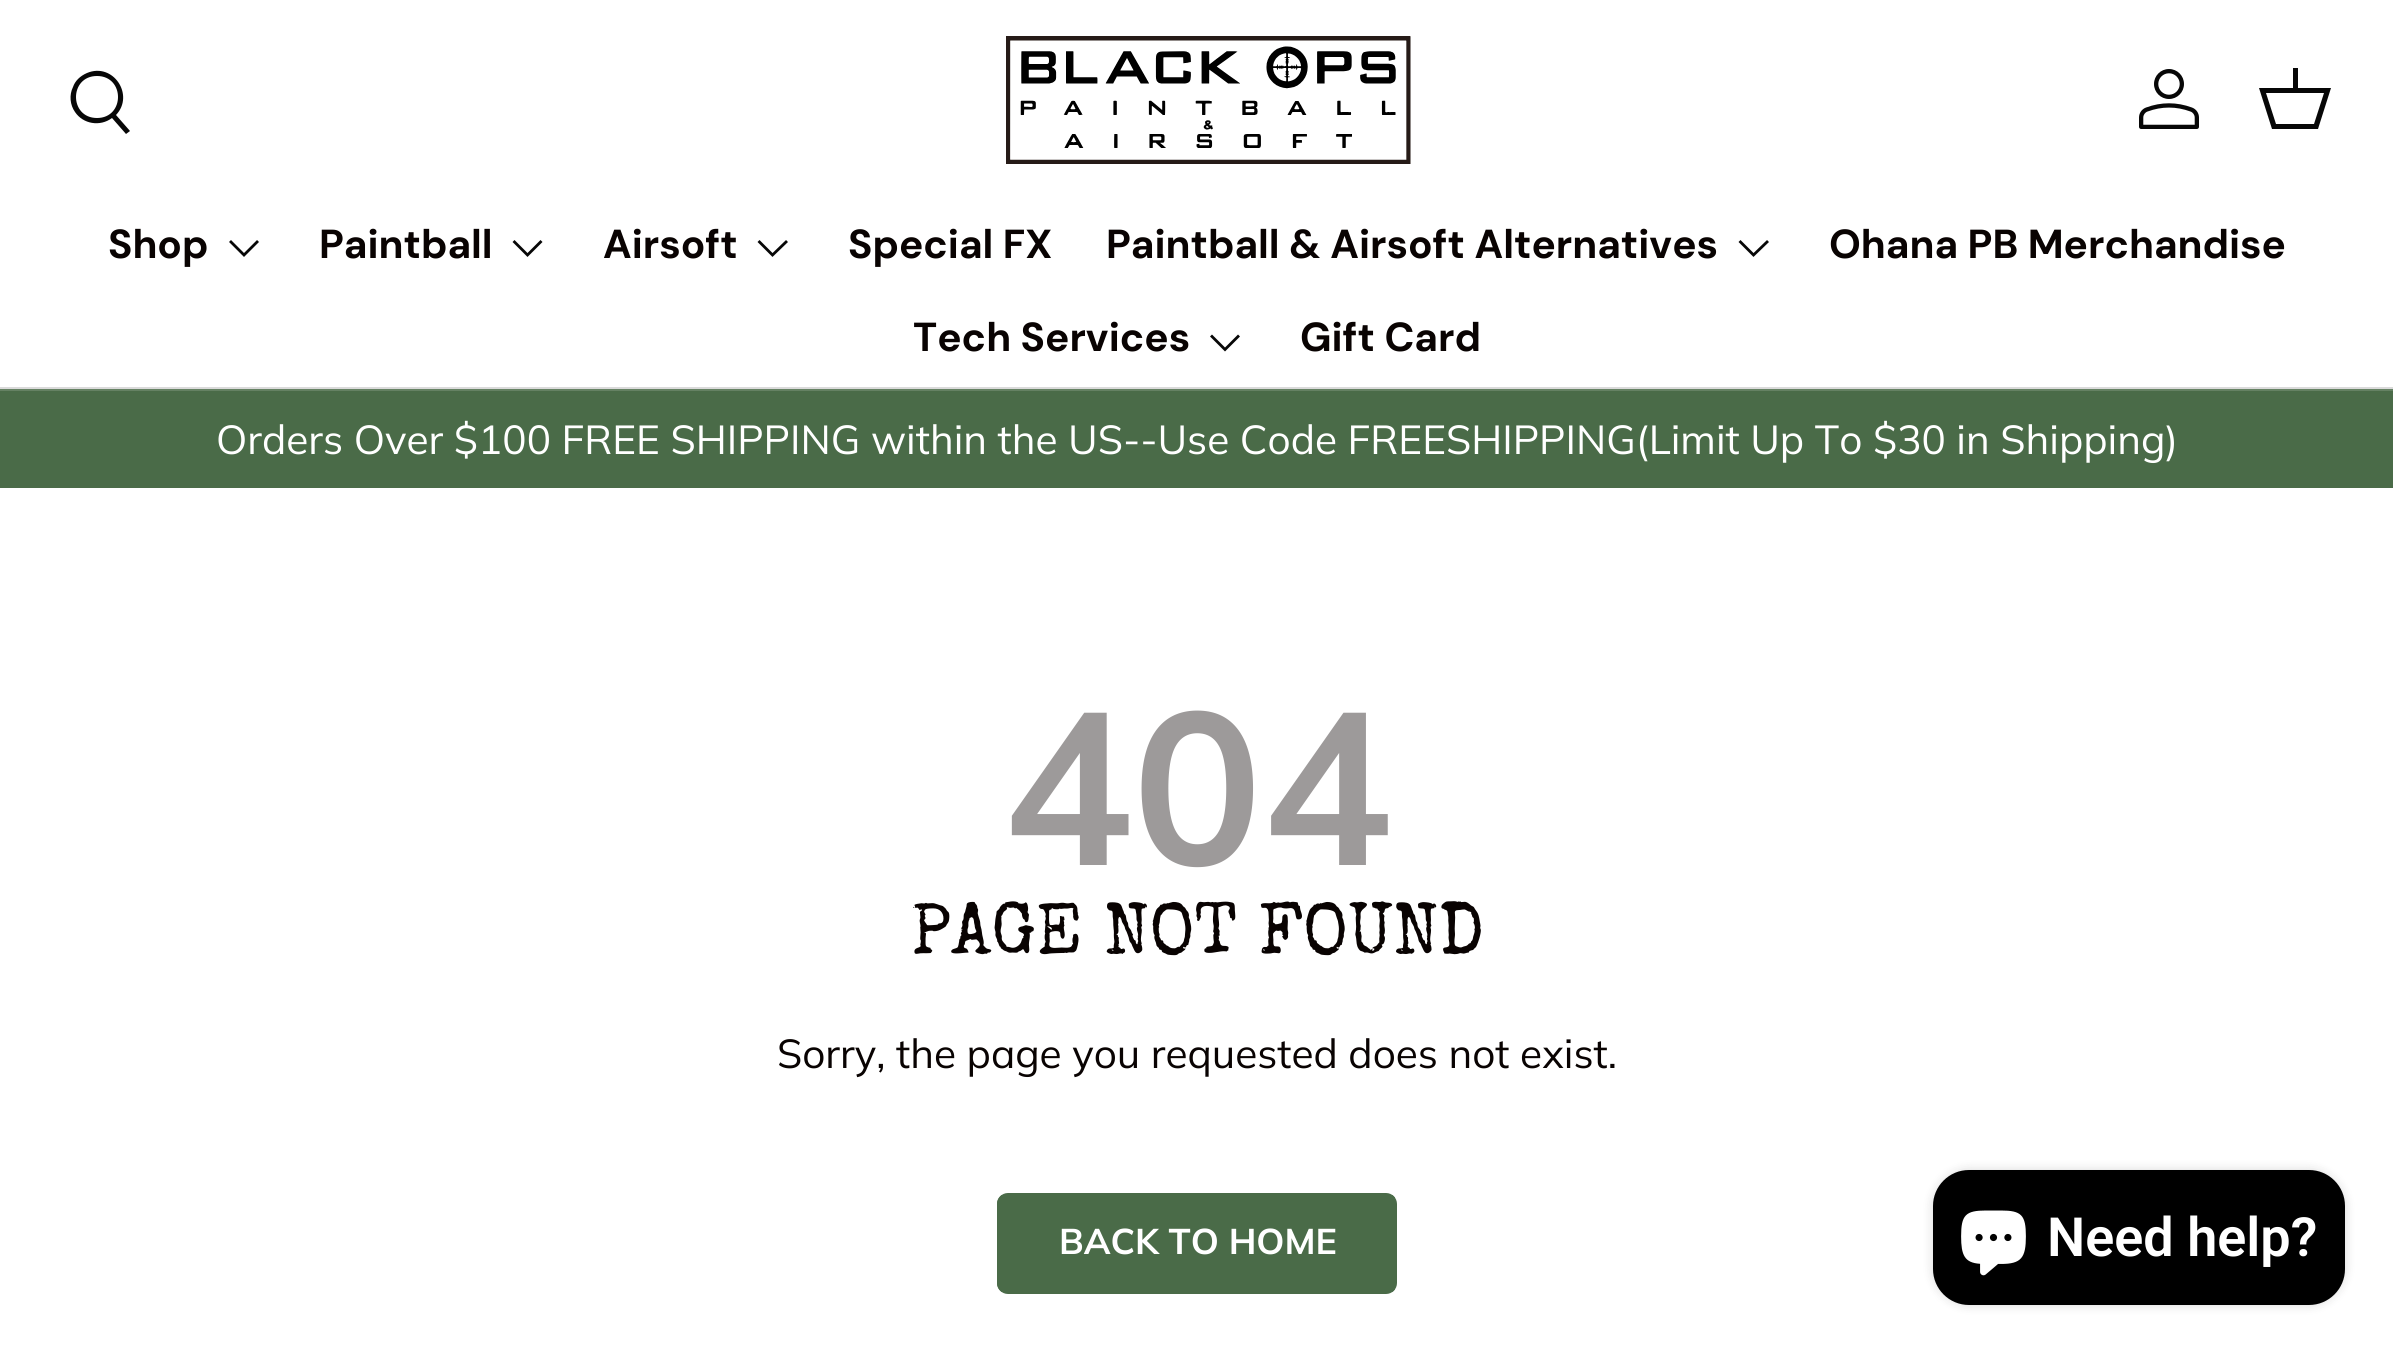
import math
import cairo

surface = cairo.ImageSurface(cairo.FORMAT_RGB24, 2393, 1352)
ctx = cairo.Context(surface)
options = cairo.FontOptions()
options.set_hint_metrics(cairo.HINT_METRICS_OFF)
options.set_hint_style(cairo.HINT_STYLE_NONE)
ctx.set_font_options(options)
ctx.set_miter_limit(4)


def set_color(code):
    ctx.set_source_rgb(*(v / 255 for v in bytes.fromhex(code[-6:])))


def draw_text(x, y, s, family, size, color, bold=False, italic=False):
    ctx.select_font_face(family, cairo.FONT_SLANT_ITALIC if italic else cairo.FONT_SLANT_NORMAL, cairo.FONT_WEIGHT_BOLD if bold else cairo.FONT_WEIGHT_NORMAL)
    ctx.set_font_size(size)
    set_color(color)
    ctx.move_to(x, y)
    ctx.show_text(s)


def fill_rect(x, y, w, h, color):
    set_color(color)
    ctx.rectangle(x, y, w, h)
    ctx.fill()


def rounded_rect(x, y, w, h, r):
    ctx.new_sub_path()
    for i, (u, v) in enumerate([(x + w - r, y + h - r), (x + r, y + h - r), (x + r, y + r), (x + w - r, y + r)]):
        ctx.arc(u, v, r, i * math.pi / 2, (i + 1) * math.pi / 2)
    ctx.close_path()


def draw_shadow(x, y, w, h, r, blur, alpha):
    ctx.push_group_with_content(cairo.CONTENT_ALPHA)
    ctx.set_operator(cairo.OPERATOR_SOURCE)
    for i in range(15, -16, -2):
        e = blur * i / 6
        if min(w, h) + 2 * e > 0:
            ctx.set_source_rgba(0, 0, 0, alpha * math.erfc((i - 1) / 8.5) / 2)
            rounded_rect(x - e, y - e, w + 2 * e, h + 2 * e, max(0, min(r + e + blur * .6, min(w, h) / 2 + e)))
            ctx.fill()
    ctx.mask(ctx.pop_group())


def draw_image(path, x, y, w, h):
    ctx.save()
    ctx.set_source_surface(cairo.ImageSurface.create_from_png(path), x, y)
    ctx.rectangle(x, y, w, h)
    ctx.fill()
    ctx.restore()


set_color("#ffffff")
ctx.paint()
fill_rect(0, 387, 2393, 2, "#dadada")
set_color("#070707")
ctx.new_path()
ctx.move_to(116, 115)
ctx.line_to(130, 131)
ctx.line_to(126, 134)
ctx.line_to(112, 118)
ctx.curve_to(100, 127, 83, 124, 75, 112)
ctx.curve_to(70, 105, 69, 95, 73, 87)
ctx.curve_to(75, 81, 80, 76, 87, 73)
ctx.curve_to(113, 62, 135, 95, 116, 115)
ctx.close_path()
ctx.move_to(97, 118)
ctx.curve_to(125, 118, 125, 76, 97, 76)
ctx.curve_to(69, 76, 69, 118, 97, 118)
ctx.close_path()
ctx.fill()
draw_image("assets/img1.png", 1006, 36, 405, 128)
draw_image("assets/img2.png", 2139, 69, 60, 60)
ctx.new_path()
ctx.move_to(2293, 88)
ctx.line_to(2293, 68)
ctx.line_to(2298, 68)
ctx.line_to(2298, 88)
ctx.line_to(2331, 88)
ctx.line_to(2318, 129)
ctx.line_to(2272, 129)
ctx.line_to(2259, 88)
ctx.close_path()
ctx.move_to(2266, 93)
ctx.line_to(2276, 124)
ctx.line_to(2314, 124)
ctx.line_to(2324, 93)
ctx.close_path()
ctx.fill()
draw_text(108, 258, "Shop", "DM Sans", 40.5, "#090302", bold=True)
ctx.new_path()
ctx.move_to(258, 241)
ctx.line_to(244, 255)
ctx.line_to(230, 241)
set_color("#070707")
ctx.set_line_width(2.8)
ctx.stroke()
draw_text(319, 258, "Paintball", "DM Sans", 40.5, "#090302", bold=True)
ctx.new_path()
ctx.move_to(541.5, 241)
ctx.line_to(527.5, 255)
ctx.line_to(513.5, 241)
set_color("#070707")
ctx.stroke()
draw_text(603, 258, "Airsoft", "DM Sans", 40.5, "#090302", bold=True)
ctx.new_path()
ctx.move_to(787, 241)
ctx.line_to(772.5, 255)
ctx.line_to(758.5, 241)
set_color("#070707")
ctx.stroke()
draw_text(848, 258, "Special FX", "DM Sans", 40.5, "#090302", bold=True)
draw_text(1106, 258, "Paintball & Airsoft Alternatives", "DM Sans", 40.5, "#090302", bold=True)
ctx.new_path()
ctx.move_to(1768, 241)
ctx.line_to(1753.5, 255)
ctx.line_to(1739.5, 241)
set_color("#070707")
ctx.stroke()
draw_text(1829, 258, "Ohana PB Merchandise", "DM Sans", 40.5, "#090302", bold=True)
draw_text(913, 351, "Tech Services", "DM Sans", 40.5, "#090302", bold=True)
ctx.new_path()
ctx.move_to(1239, 335.5)
ctx.line_to(1225, 349.5)
ctx.line_to(1211, 335.5)
set_color("#070707")
ctx.stroke()
draw_text(1300, 351, "Gift Card", "DM Sans", 40.5, "#090302", bold=True)
fill_rect(0, 391, 2393, 97, "#4a6b48")
fill_rect(0, 389, 2393, 2, "#658163")
draw_text(216, 454, "Orders Over $100 FREE SHIPPING within the US--Use Code FREESHIPPING(Limit Up To $30 in Shipping)", "Muli", 40.5, "#ffffff")
draw_text(1003, 865, "404", "Muli", 216, "#9d9a9a", bold=True)
draw_text(911, 953, "PAGE NOT FOUND", "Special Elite", 72.75, "#090302")
draw_text(777, 1068, "Sorry, the page you requested does not exist.", "Muli", 40.5, "#090302")
ctx.save()
rounded_rect(997, 1193, 400, 101, 11)
ctx.clip()
gradient = cairo.LinearGradient(230, 1101, 1372, 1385)
gradient.add_color_stop_rgba(0.6, 0.424, 0.541, 0.416, 1)
gradient.add_color_stop_rgba(0.6, 0.29, 0.42, 0.282, 1)
gradient.add_color_stop_rgba(1, 0.29, 0.42, 0.282, 1)
ctx.set_source(gradient)
ctx.rectangle(997, 1195, 398, 97)
ctx.fill()
ctx.restore()
rounded_rect(998, 1194, 398, 99, 10)
set_color("#4a6b48")
ctx.set_line_width(2)
ctx.stroke()
draw_text(1059, 1254, "BACK TO HOME", "Muli", 35.75, "#ffffff", bold=True)
set_color("#000000")
draw_shadow(1933, 1170, 412, 135, 36, 5.5, 0.15)
set_color("#000000")
rounded_rect(1933, 1170, 412, 135, 36)
ctx.fill()
draw_image("assets/img3.png", 1961, 1210, 65, 66)
draw_text(2047, 1256, "Need help?", "Roboto SemiBold", 54, "#ffffff")
surface.write_to_png("output.png")
